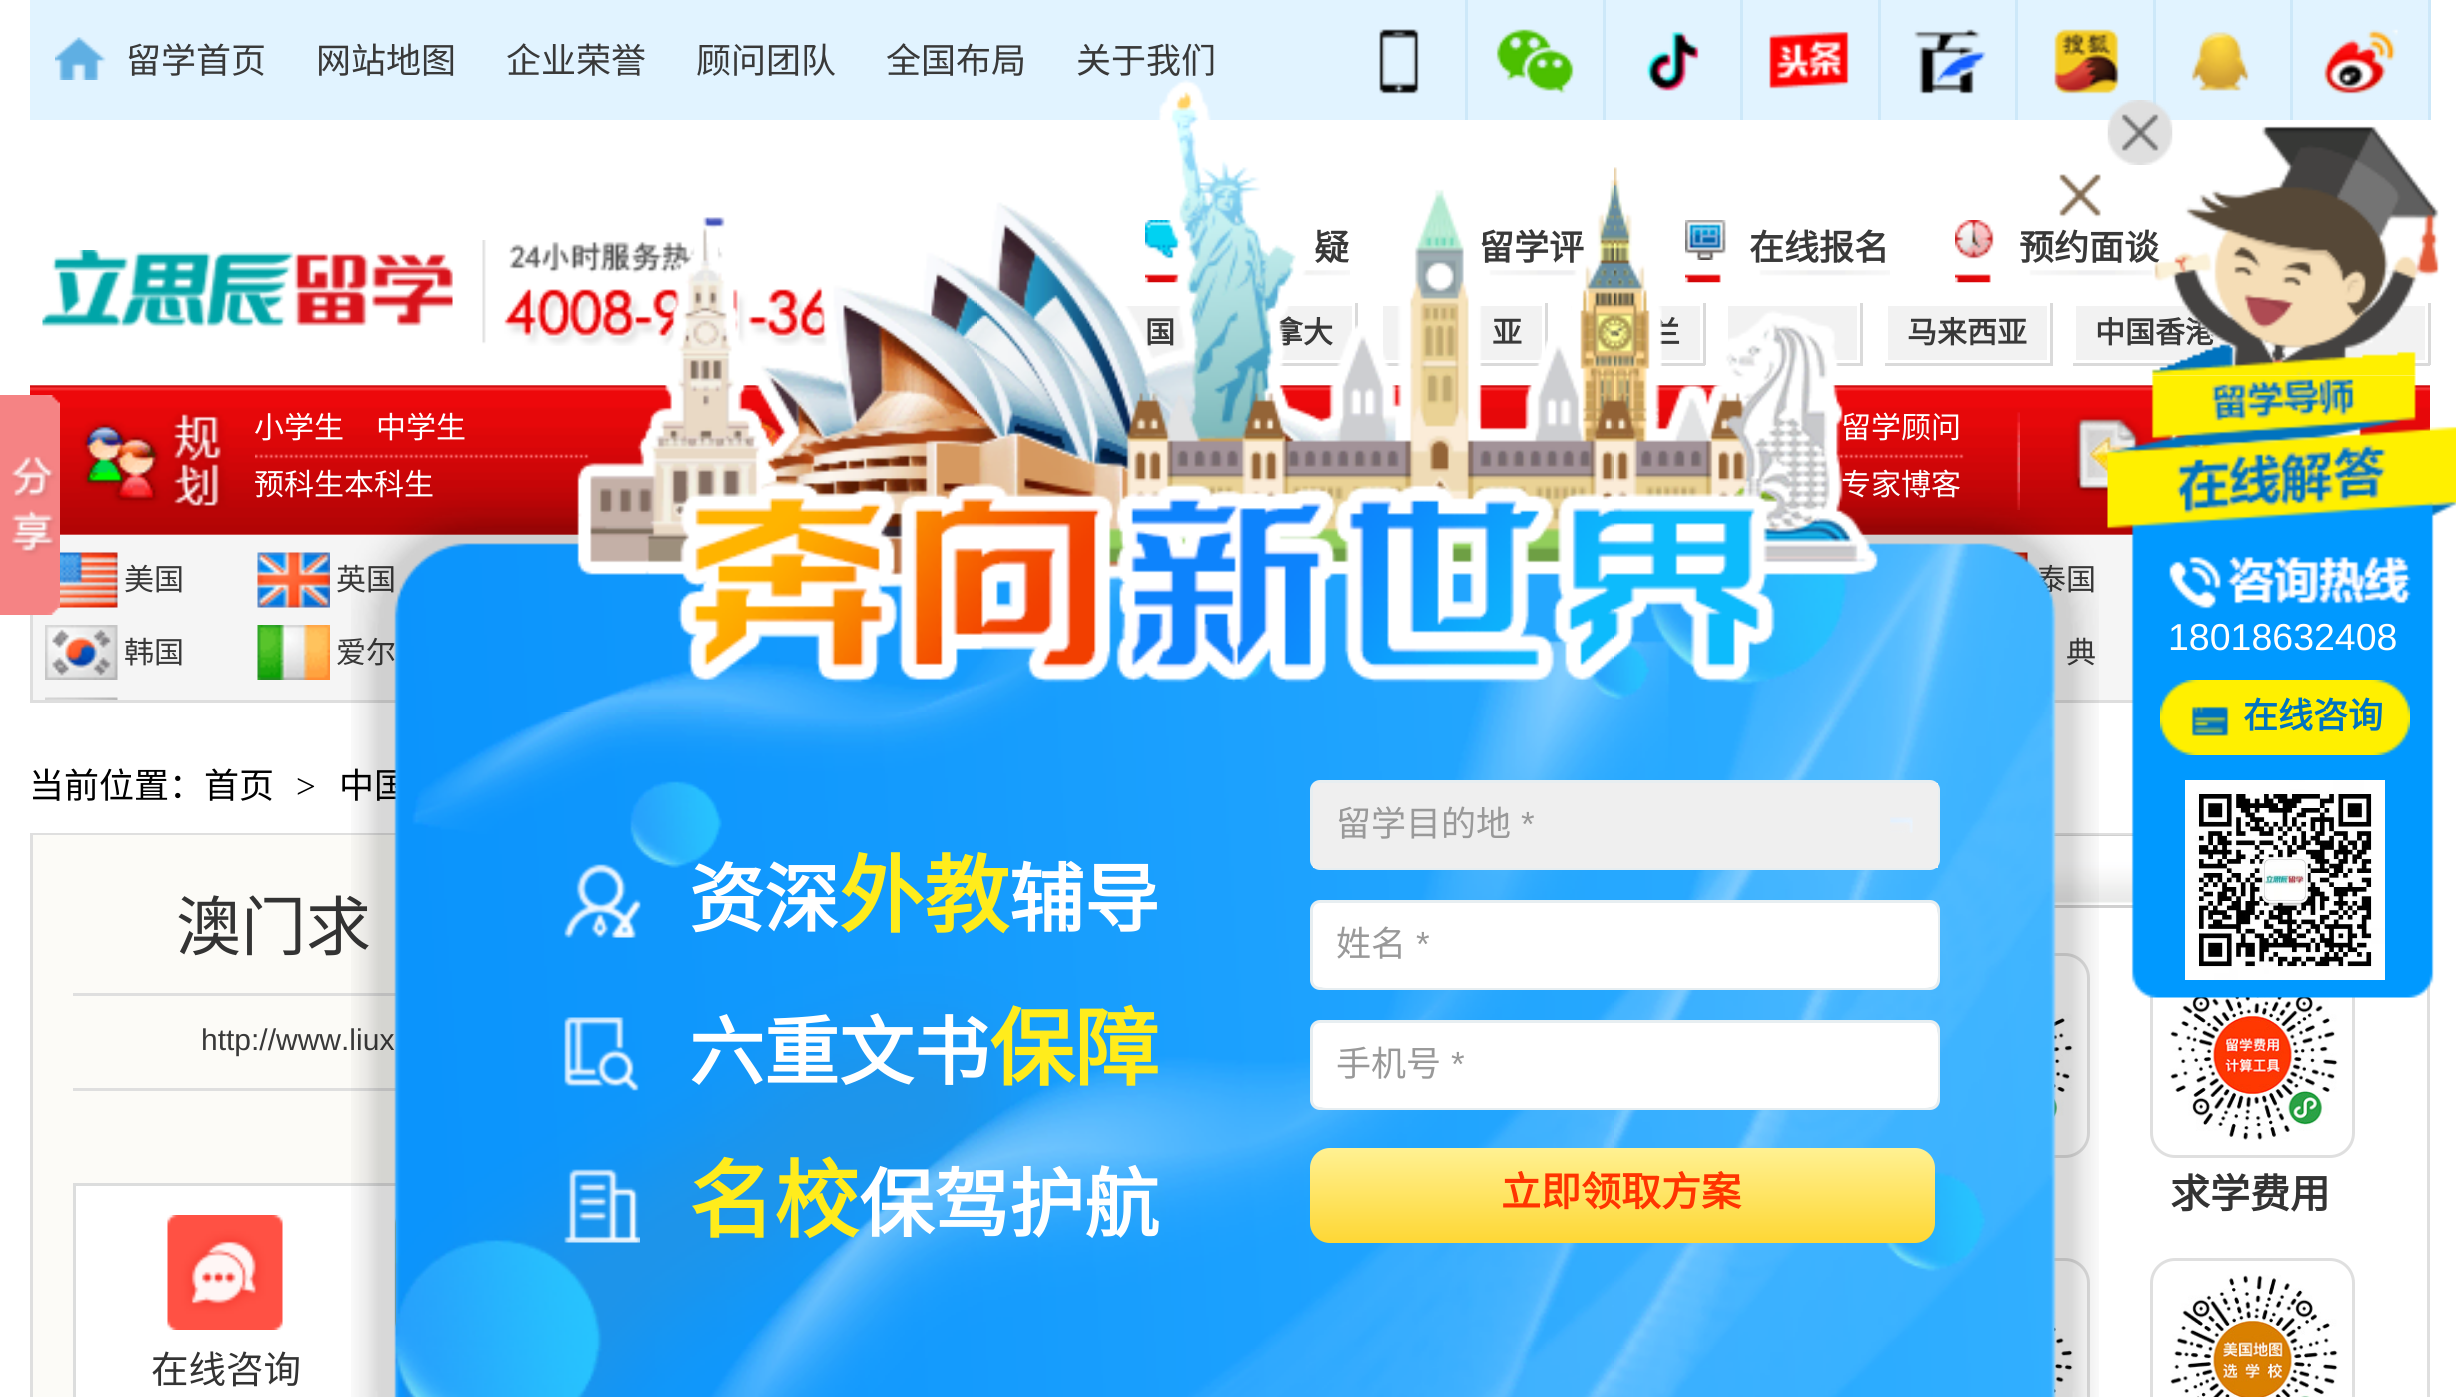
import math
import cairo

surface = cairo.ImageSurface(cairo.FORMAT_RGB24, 2456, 1397)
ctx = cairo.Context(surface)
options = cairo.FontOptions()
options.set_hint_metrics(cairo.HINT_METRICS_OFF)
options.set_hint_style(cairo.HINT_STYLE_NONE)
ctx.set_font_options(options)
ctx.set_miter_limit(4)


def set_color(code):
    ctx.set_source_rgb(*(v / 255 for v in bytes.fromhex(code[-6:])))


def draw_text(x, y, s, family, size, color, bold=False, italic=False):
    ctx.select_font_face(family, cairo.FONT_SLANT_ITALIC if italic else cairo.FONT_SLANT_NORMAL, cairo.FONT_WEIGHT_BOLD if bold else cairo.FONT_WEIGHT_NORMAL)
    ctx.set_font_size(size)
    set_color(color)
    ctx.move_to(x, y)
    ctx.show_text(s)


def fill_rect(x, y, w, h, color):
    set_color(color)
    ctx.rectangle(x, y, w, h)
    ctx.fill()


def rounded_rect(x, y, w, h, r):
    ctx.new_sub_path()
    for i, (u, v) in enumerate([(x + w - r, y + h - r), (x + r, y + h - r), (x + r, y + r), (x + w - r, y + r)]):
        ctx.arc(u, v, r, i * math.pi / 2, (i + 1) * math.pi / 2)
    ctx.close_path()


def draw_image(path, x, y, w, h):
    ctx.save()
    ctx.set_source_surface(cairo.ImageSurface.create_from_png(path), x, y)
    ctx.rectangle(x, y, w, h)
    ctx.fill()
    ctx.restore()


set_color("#ffffff")
ctx.paint()
draw_image("assets/img21.png", 30, 385, 2400, 150)
fill_rect(33, 535, 2101, 165, "#f5f5f5")
draw_image("assets/img30.png", 56, 552, 62, 56)
draw_image("assets/img1.png", 0, 395, 60, 220)
fill_rect(30, 0, 2398, 120, "#e1f3ff")
draw_image("assets/img2.png", 55, 37, 51, 43)
draw_text(126, 73, "留学首页", "Noto Sans CJK SC", 35, "#393939")
draw_text(316, 73, "网站地图", "Noto Sans CJK SC", 35, "#393939")
draw_text(506, 73, "企业荣誉", "Noto Sans CJK SC", 35, "#393939")
draw_text(696, 73, "顾问团队", "Noto Sans CJK SC", 35, "#393939")
draw_text(886, 73, "全国布局", "Noto Sans CJK SC", 35, "#393939")
draw_text(1076, 73, "关于我们", "Noto Sans CJK SC", 35, "#393939")
fill_rect(1465, 0, 3, 120, "#cde8f9")
draw_image("assets/img3.png", 1379, 29, 40, 65)
fill_rect(1603, 0, 3, 120, "#cde8f9")
draw_image("assets/img4.png", 1496, 29, 78, 65)
fill_rect(1740, 0, 3, 120, "#cde8f9")
draw_image("assets/img5.png", 1646, 31, 53, 60)
fill_rect(1878, 0, 3, 120, "#cde8f9")
draw_image("assets/img6.png", 1769, 31, 80, 58)
fill_rect(2015, 0, 3, 120, "#cde8f9")
draw_image("assets/img7.png", 1914, 29, 72, 65)
fill_rect(2153, 0, 3, 108, "#cde8f9")
draw_image("assets/img8.png", 2054, 29, 65, 65)
fill_rect(2290, 0, 3, 120, "#cde8f9")
draw_image("assets/img9.png", 2191, 31, 58, 60)
fill_rect(2428, 0, 3, 120, "#cde8f9")
draw_image("assets/img10.png", 2324, 29, 74, 65)
draw_image("assets/img11.png", 42, 250, 411, 78)
draw_image("assets/img12.png", 482, 240, 389, 106)
draw_image("assets/img13.png", 1145, 270, 205, 13)
draw_image("assets/img14.png", 1145, 220, 39, 39)
draw_text(1314, 260, "疑", "Noto Sans CJK SC", 35, "#393939", bold=True)
draw_image("assets/img15.png", 1479, 270, 98, 6)
draw_image("assets/img16.png", 1415, 220, 2, 4)
draw_text(1479, 260, "留学评", "Noto Sans CJK SC", 35, "#393939", bold=True)
draw_image("assets/img13.png", 1685, 270, 205, 13)
draw_image("assets/img17.png", 1685, 220, 41, 40)
draw_text(1749, 260, "在线报名", "Noto Sans CJK SC", 35, "#393939", bold=True)
draw_image("assets/img18.png", 1955, 270, 199, 13)
draw_image("assets/img19.png", 1955, 220, 39, 39)
draw_text(2019, 260, "预约面谈", "Noto Sans CJK SC", 35, "#393939", bold=True)
draw_image("assets/img20.png", 2386, 270, 38, 6)
fill_rect(1124, 306, 62, 54, "#f2f2f2")
draw_text(1145, 343, "国", "Noto Sans CJK SC", 30, "#393939", bold=True)
fill_rect(1355, 303, 3, 29, "#dadada")
fill_rect(1279, 363, 63, 3, "#dadada")
fill_rect(1277, 306, 75, 54, "#f2f2f2")
draw_text(1273, 343, "拿大", "Noto Sans CJK SC", 30, "#393939", bold=True)
fill_rect(1545, 303, 3, 49, "#dadada")
fill_rect(1380, 363, 168, 3, "#dadada")
fill_rect(1383, 306, 159, 54, "#f2f2f2")
draw_text(1492, 343, "亚", "Noto Sans CJK SC", 30, "#393939", bold=True)
fill_rect(1703, 303, 3, 62, "#dadada")
fill_rect(1660, 363, 45, 3, "#dadada")
fill_rect(1571, 306, 129, 54, "#f2f2f2")
draw_text(1650, 343, "兰", "Noto Sans CJK SC", 30, "#393939", bold=True)
fill_rect(1860, 303, 3, 62, "#dadada")
fill_rect(1836, 363, 27, 3, "#dadada")
fill_rect(1728, 306, 129, 54, "#f2f2f2")
fill_rect(2050, 303, 3, 62, "#dadada")
fill_rect(1885, 363, 168, 3, "#dadada")
fill_rect(1888, 306, 159, 54, "#f2f2f2")
draw_text(1907, 343, "马来西亚", "Noto Sans CJK SC", 30, "#393939", bold=True)
fill_rect(2073, 363, 108, 3, "#dadada")
fill_rect(2076, 306, 150, 54, "#f2f2f2")
draw_text(2095, 343, "中国香港", "Noto Sans CJK SC", 30, "#393939", bold=True)
fill_rect(2428, 303, 3, 62, "#dadada")
fill_rect(2414, 363, 16, 3, "#dadada")
fill_rect(2346, 306, 79, 54, "#f2f2f2")
draw_image("assets/img22.png", 656, 412, 4, 5)
draw_image("assets/img23.png", 80, 410, 149, 100)
draw_image("assets/img24.png", 255, 454, 334, 5)
draw_text(254, 438, "小学生", "Noto Sans CJK SC", 30, "#ffffff")
draw_text(376, 438, "中学生", "Noto Sans CJK SC", 30, "#ffffff")
draw_text(254, 495, "预科生本科生", "Noto Sans CJK SC", 30, "#ffffff")
draw_image("assets/img25.png", 753, 412, 35, 35)
draw_image("assets/img26.png", 2016, 412, 4, 98)
draw_image("assets/img27.png", 1515, 410, 150, 20)
draw_image("assets/img28.png", 1836, 454, 128, 5)
draw_text(1841, 438, "留学顾问", "Noto Sans CJK SC", 30, "#ffffff")
draw_text(1841, 495, "专家博客", "Noto Sans CJK SC", 30, "#ffffff")
draw_image("assets/img29.png", 2070, 411, 141, 99)
fill_rect(30, 700, 2104, 3, "#dedede")
fill_rect(30, 615, 3, 88, "#dedede")
draw_text(124, 590, "美国", "Noto Sans CJK SC", 30, "#393939")
draw_image("assets/img31.png", 257, 552, 73, 56)
draw_text(336, 590, "英国", "Noto Sans CJK SC", 30, "#393939")
draw_image("assets/img32.png", 2007, 552, 21, 13)
draw_text(2036, 590, "泰国", "Noto Sans CJK SC", 30, "#393939")
draw_image("assets/img33.png", 45, 625, 73, 55)
draw_text(124, 663, "韩国", "Noto Sans CJK SC", 30, "#393939")
draw_image("assets/img34.png", 257, 625, 73, 55)
draw_text(336, 663, "爱尔", "Noto Sans CJK SC", 30, "#393939")
draw_text(2066, 663, "典", "Noto Sans CJK SC", 30, "#393939")
draw_image("assets/img35.png", 45, 697, 73, 3)
ctx.rectangle(31.5, 834.5, 2397, 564)
set_color("#dfdfdf")
ctx.set_line_width(3)
ctx.stroke()
draw_image("assets/img43.png", 2054, 836, 80, 69)
fill_rect(2054, 835, 80, 1, "#d0d0d0")
fill_rect(2054, 905, 80, 3, "#d0d0d0")
rounded_rect(2151.5, 954.5, 202, 202, 23.5)
set_color("#dfdfdf")
ctx.stroke()
draw_image("assets/img45.png", 2170, 997, 168, 143)
draw_image("assets/img36.png", 2107, 374, 349, 624)
draw_image("assets/img38.png", 2151, 126, 288, 249)
draw_image("assets/img37.png", 2107, 100, 66, 65)
draw_text(2168, 650, "18018632408", "Liberation Sans", 37.5, "#ffffff")
draw_image("assets/img39.png", 2160, 680, 250, 75)
draw_text(2243, 728, "在线咨询", "Noto Sans CJK SC", 35, "#0073bf", bold=True)
draw_image("assets/img40.png", 2185, 780, 200, 200)
draw_text(29, 798, "当前位置：首页", "Noto Sans CJK SC", 35, "#000000")
draw_text(296, 798, ">", "Liberation Serif", 35, "#000000")
draw_text(339, 798, "中国", "Noto Sans CJK SC", 35, "#000000")
fill_rect(33, 835, 363, 562, "#fcfbf7")
draw_text(176, 950, "澳门求", "Noto Sans CJK SC", 65, "#333333")
fill_rect(73, 993, 323, 3, "#dfdfdf")
draw_text(201, 1050, "http://www.liux", "Liberation Sans", 30, "#393939")
fill_rect(73, 1088, 323, 3, "#dfdfdf")
fill_rect(76, 1186, 320, 211, "#ffffff")
ctx.rectangle(74.5, 1184.5, 1442, 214)
set_color("#dcdddd")
ctx.stroke()
draw_image("assets/img41.png", 395, 1217, 1, 111)
draw_image("assets/img42.png", 167, 1215, 116, 115)
draw_text(151, 1383, "在线咨询", "Noto Sans CJK SC", 37.5, "#333333")
rounded_rect(1886.5, 954.5, 202, 202, 23.5)
set_color("#dfdfdf")
ctx.stroke()
draw_image("assets/img44.png", 2054, 973, 19, 167)
draw_text(2170, 1208, "求学费用", "Noto Sans CJK SC", 40, "#333333", bold=True)
rounded_rect(1886.5, 1259.5, 202, 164, 23.5)
set_color("#dfdfdf")
ctx.stroke()
draw_image("assets/img46.png", 2054, 1275, 19, 122)
rounded_rect(2151.5, 1259.5, 202, 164, 23.5)
ctx.stroke()
draw_image("assets/img47.png", 2170, 1275, 168, 122)
draw_image("assets/img48.png", 351, 80, 1748, 1317)
draw_image("assets/img49.png", 2059, 174, 42, 44)
draw_image("assets/img50.png", 564, 864, 77, 74)
draw_text(689, 926, "资深", "Noto Sans CJK SC", 75, "#ffffff", bold=True)
draw_text(839, 926, "外教", "Noto Sans CJK SC", 85, "#ffec1c", bold=True)
draw_text(1009, 926, "辅导", "Noto Sans CJK SC", 75, "#ffffff", bold=True)
draw_image("assets/img51.png", 564, 1017, 75, 74)
draw_text(689, 1079, "六重文书", "Noto Sans CJK SC", 75, "#ffffff", bold=True)
draw_text(989, 1079, "保障", "Noto Sans CJK SC", 85, "#ffec1c", bold=True)
draw_image("assets/img52.png", 564, 1169, 76, 74)
draw_text(689, 1231, "名校", "Noto Sans CJK SC", 85, "#ffec1c", bold=True)
draw_text(859, 1231, "保驾护航", "Noto Sans CJK SC", 75, "#ffffff", bold=True)
rounded_rect(1311.5, 781.5, 627, 87, 8.5)
set_color("#e7eef1")
ctx.stroke()
fill_rect(1313, 783, 625, 85, "#efefef")
draw_text(1336, 836, "留学目的地", "Noto Sans CJK SC", 35, "#999999")
draw_text(1521, 836, "*", "Liberation Sans", 35, "#999999")
draw_image("assets/img53.png", 1890, 817, 23, 16)
set_color("#ffffff")
rounded_rect(1311.5, 901.5, 627, 87, 8.5)
ctx.fill_preserve()
set_color("#e7eef1")
ctx.stroke()
set_color("#ffffff")
rounded_rect(1313, 903, 625, 85, 13)
ctx.fill()
draw_text(1336, 956, "姓名", "Noto Sans CJK SC", 35, "#999999")
draw_text(1416, 956, "*", "Liberation Sans", 35, "#999999")
set_color("#ffffff")
rounded_rect(1311.5, 1021.5, 627, 87, 8.5)
ctx.fill_preserve()
set_color("#e7eef1")
ctx.stroke()
set_color("#ffffff")
rounded_rect(1313, 1023, 625, 85, 13)
ctx.fill()
draw_text(1336, 1076, "手机号", "Noto Sans CJK SC", 35, "#999999")
draw_text(1451, 1076, "*", "Liberation Sans", 35, "#999999")
gradient = cairo.LinearGradient(1623, 1148, 1623, 1243)
gradient.add_color_stop_rgba(0, 1, 0.945, 0.576, 1)
gradient.add_color_stop_rgba(1, 0.996, 0.843, 0.204, 1)
ctx.set_source(gradient)
rounded_rect(1310, 1148, 625, 95, 20)
ctx.fill()
draw_text(1501, 1206, "立即领取方案", "Noto Sans CJK SC", 40, "#ff3400", bold=True)
surface.write_to_png("output.png")
